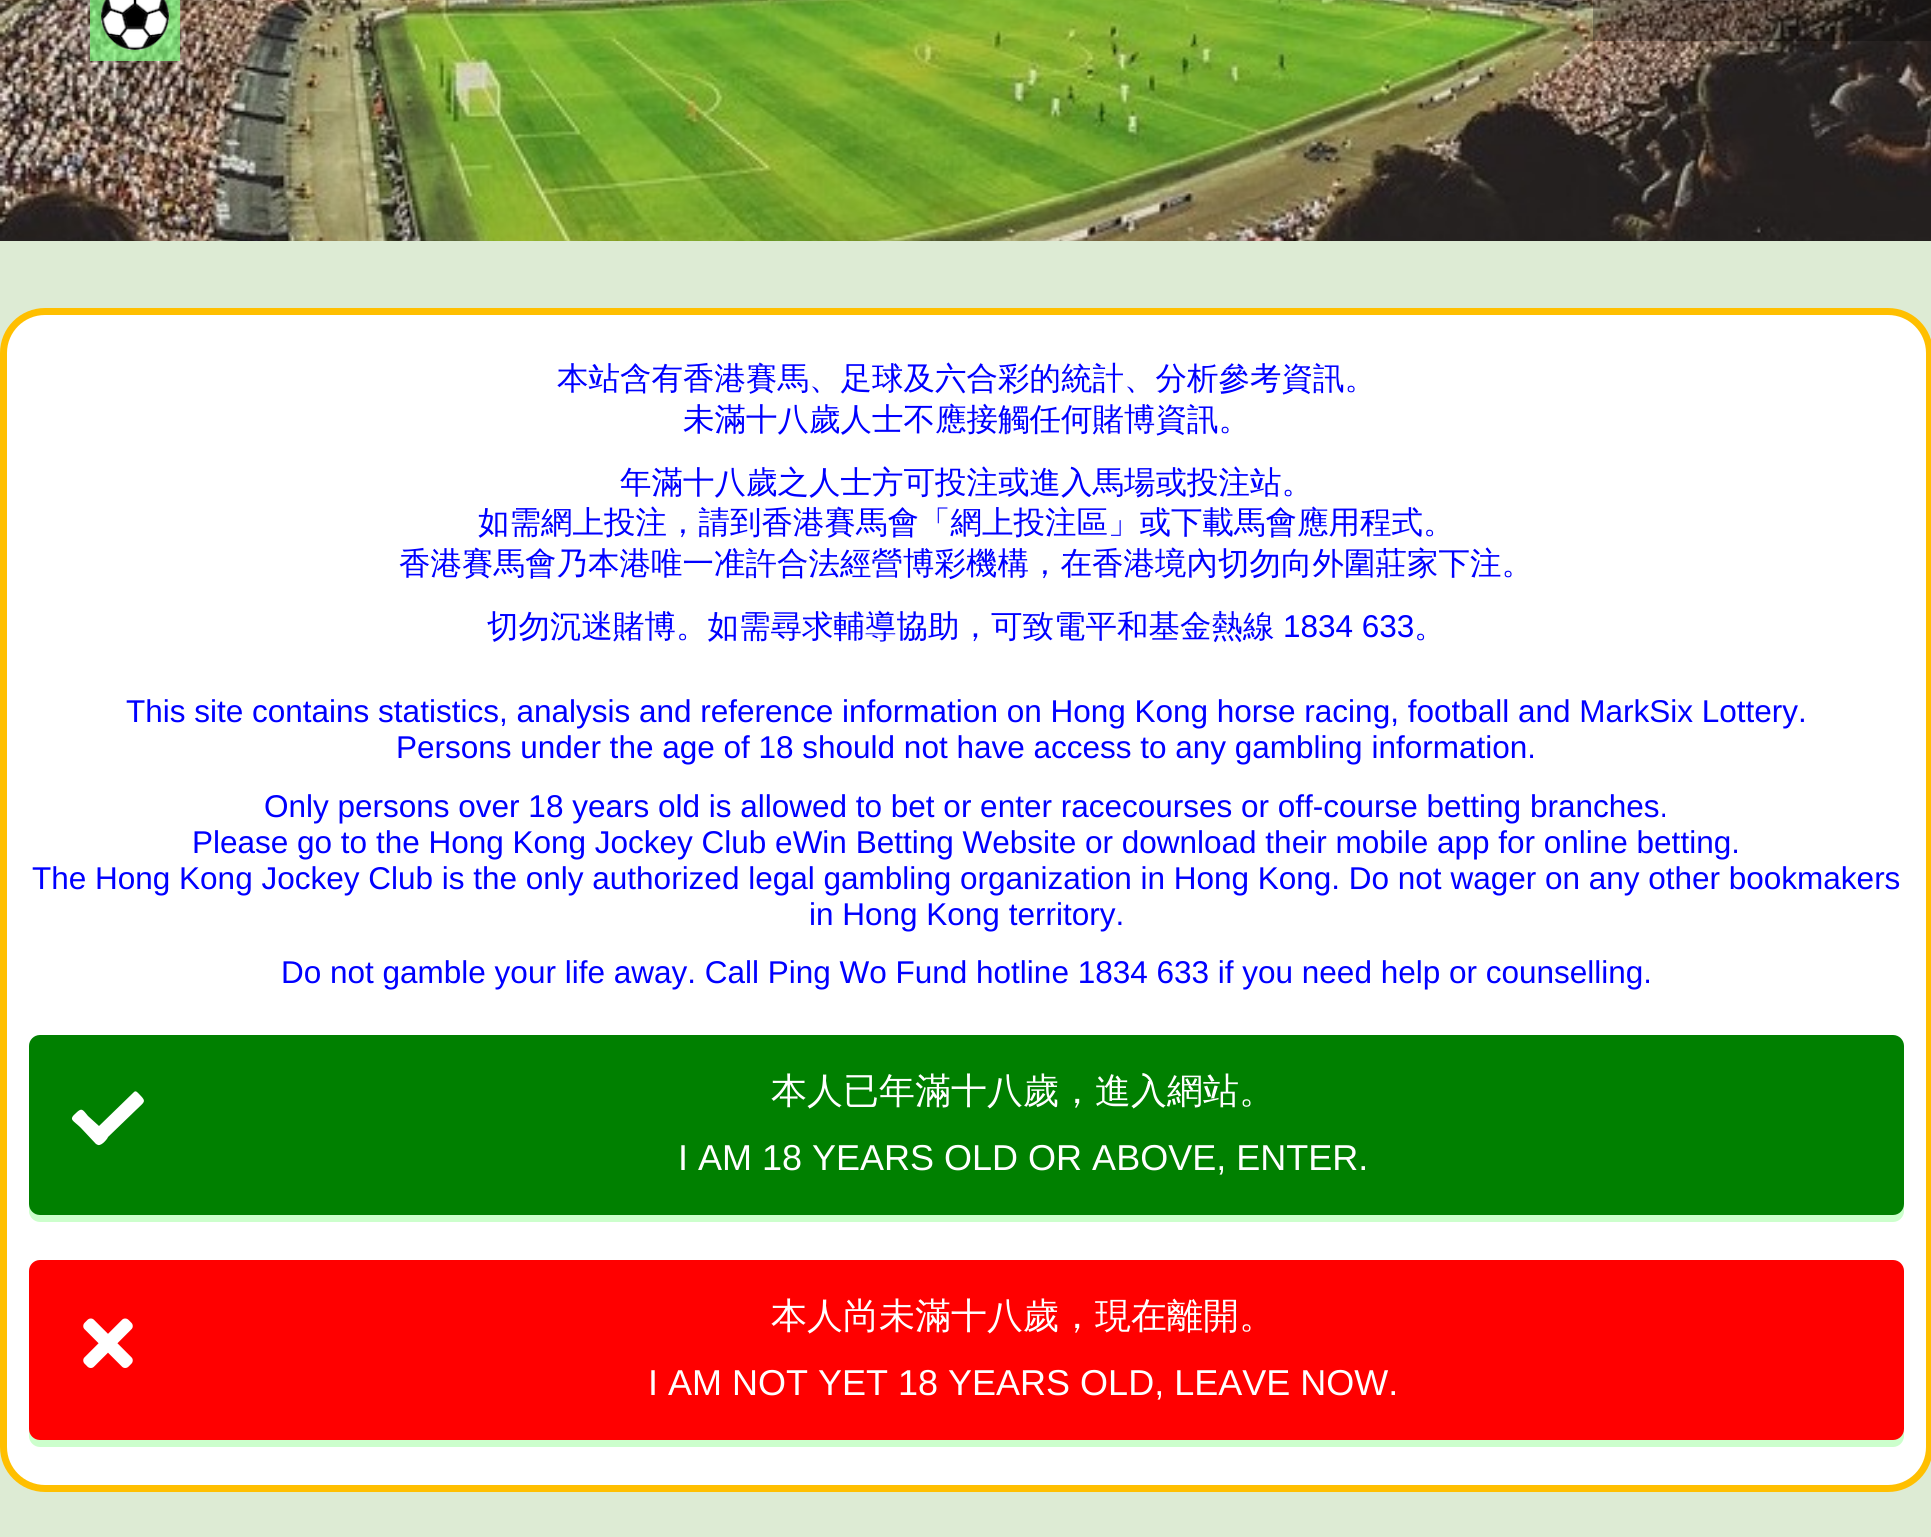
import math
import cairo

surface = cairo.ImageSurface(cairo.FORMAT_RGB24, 1931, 1537)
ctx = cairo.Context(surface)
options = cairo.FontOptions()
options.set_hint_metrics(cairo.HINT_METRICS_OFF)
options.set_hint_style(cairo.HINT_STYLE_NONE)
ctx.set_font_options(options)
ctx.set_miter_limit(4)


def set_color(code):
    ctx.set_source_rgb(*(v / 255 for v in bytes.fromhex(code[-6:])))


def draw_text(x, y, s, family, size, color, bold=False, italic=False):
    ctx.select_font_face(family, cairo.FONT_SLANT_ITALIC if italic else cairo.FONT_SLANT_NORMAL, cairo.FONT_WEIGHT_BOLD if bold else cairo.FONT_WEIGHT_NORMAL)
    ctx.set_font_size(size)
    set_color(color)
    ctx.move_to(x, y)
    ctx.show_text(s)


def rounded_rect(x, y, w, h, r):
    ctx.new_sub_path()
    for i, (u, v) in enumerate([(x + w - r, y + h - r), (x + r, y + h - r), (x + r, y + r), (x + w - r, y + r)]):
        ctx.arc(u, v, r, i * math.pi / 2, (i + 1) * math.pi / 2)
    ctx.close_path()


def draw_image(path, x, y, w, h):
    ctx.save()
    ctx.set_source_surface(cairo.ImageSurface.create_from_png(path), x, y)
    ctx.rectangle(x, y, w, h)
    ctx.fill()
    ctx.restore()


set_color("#ddebd4")
ctx.paint()
draw_image("assets/img1.png", 0, 0, 1931, 241)
ctx.set_source_rgba(0.502, 1, 0.502, 0.7)
ctx.rectangle(90, 0, 90, 61)
ctx.fill()
draw_image("assets/img2.png", 101, 0, 68, 50)
ctx.set_source_rgba(0, 0, 0, 0.3)
ctx.rectangle(1593, 0, 338, 41)
ctx.fill()
set_color("#ffffff")
rounded_rect(3.5, 311.5, 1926, 1177, 41.5)
ctx.fill_preserve()
set_color("#ffbf00")
ctx.set_line_width(7)
ctx.stroke()
draw_text(557, 389, "本站含有香港賽馬、足球及六合彩的統計、分析參考資訊。", "WenQuanYi Zen Hei Medium", 31.5, "#0000ff")
draw_text(683, 430, "未滿十八歲人士不應接觸任何賭博資訊。", "WenQuanYi Zen Hei Medium", 31.5, "#0000ff")
draw_text(620, 493, "年滿十八歲之人士方可投注或進入馬場或投注站。", "WenQuanYi Zen Hei Medium", 31.5, "#0000ff")
draw_text(478, 533, "如需網上投注，請到香港賽馬會「網上投注區」或下載馬會應用程式。", "WenQuanYi Zen Hei Medium", 31.5, "#0000ff")
draw_text(399, 574, "香港賽馬會乃本港唯一准許合法經營博彩機構，在香港境內切勿向外圍莊家下注。", "WenQuanYi Zen Hei Medium", 31.5, "#0000ff")
draw_text(487, 637, "切勿沉迷賭博。如需尋求輔導協助，可致電平和基金熱線", "WenQuanYi Zen Hei Medium", 31.5, "#0000ff")
draw_text(1283, 637, "1834 633", "Liberation Sans", 31.5, "#0000ff")
draw_text(1414, 637, "。", "WenQuanYi Zen Hei Medium", 31.5, "#0000ff")
draw_text(126, 722, "This site contains statistics, analysis and reference information on Hong Kong horse racing, football and MarkSix Lottery.", "Liberation Sans", 31.5, "#0000ff")
draw_text(396, 758, "Persons under the age of 18 should not have access to any gambling information.", "Liberation Sans", 31.5, "#0000ff")
draw_text(264, 817, "Only persons over 18 years old is allowed to bet or enter racecourses or off-course betting branches.", "Liberation Sans", 31.5, "#0000ff")
draw_text(192, 853, "Please go to the Hong Kong Jockey Club eWin Betting Website or download their mobile app for online betting.", "Liberation Sans", 31.5, "#0000ff")
draw_text(32, 889, "The Hong Kong Jockey Club is the only authorized legal gambling organization in Hong Kong. Do not wager on any other bookmakers", "Liberation Sans", 31.5, "#0000ff")
draw_text(809, 925, "in Hong Kong territory.", "Liberation Sans", 31.5, "#0000ff")
draw_text(281, 983, "Do not gamble your life away. Call Ping Wo Fund hotline 1834 633 if you need help or counselling.", "Liberation Sans", 31.5, "#0000ff")
set_color("#ccffcc")
ctx.new_path()
ctx.move_to(29, 1051)
ctx.line_to(29, 1211)
ctx.curve_to(29, 1217, 34, 1222, 40, 1222)
ctx.line_to(1893, 1222)
ctx.curve_to(1899, 1222, 1904, 1217, 1904, 1211)
ctx.line_to(1904, 1053)
ctx.line_to(1904, 1050)
ctx.line_to(1904, 1204)
ctx.curve_to(1904, 1210, 1898, 1215, 1892, 1215)
ctx.line_to(40, 1215)
ctx.curve_to(34, 1215, 29, 1210, 29, 1204)
ctx.close_path()
ctx.fill()
ctx.new_path()
ctx.move_to(29, 1049)
ctx.line_to(29, 1209)
ctx.curve_to(29, 1215, 34, 1220, 40, 1220)
ctx.line_to(1893, 1220)
ctx.curve_to(1899, 1220, 1904, 1215, 1904, 1209)
ctx.line_to(1904, 1051)
ctx.line_to(1904, 1048)
ctx.line_to(1904, 1204)
ctx.curve_to(1904, 1210, 1898, 1215, 1892, 1215)
ctx.line_to(40, 1215)
ctx.curve_to(34, 1215, 29, 1210, 29, 1204)
ctx.close_path()
ctx.fill()
ctx.new_path()
ctx.move_to(29, 1046)
ctx.line_to(29, 1206)
ctx.curve_to(29, 1212, 34, 1217, 40, 1217)
ctx.line_to(1893, 1217)
ctx.curve_to(1899, 1217, 1904, 1212, 1904, 1206)
ctx.line_to(1904, 1048)
ctx.line_to(1903, 1044)
ctx.line_to(1904, 1204)
ctx.curve_to(1904, 1210, 1898, 1215, 1892, 1215)
ctx.line_to(40, 1215)
ctx.curve_to(34, 1215, 29, 1210, 29, 1204)
ctx.close_path()
ctx.fill()
set_color("#008000")
rounded_rect(29, 1035, 1875, 180, 11)
ctx.fill()
set_color("#ffffff")
ctx.new_path()
ctx.move_to(96, 1144)
ctx.line_to(81, 1128)
ctx.curve_to(73, 1120, 68, 1120, 76, 1113)
ctx.curve_to(82, 1107, 83, 1110, 88, 1116)
ctx.line_to(99, 1126)
ctx.line_to(134, 1092)
ctx.curve_to(136, 1090, 138, 1093, 140, 1095)
ctx.curve_to(147, 1102, 144, 1102, 136, 1110)
ctx.line_to(108, 1137)
ctx.curve_to(108, 1138, 102, 1146, 98, 1145)
ctx.close_path()
ctx.fill()
draw_text(771, 1103, "本人已年滿十八歲，進入網站。", "WenQuanYi Zen Hei Medium", 36, "#ffffff")
draw_text(678, 1170, "I AM 18 YEARS OLD OR ABOVE, ENTER.", "Liberation Sans", 36, "#ffffff")
set_color("#ccffcc")
ctx.new_path()
ctx.move_to(29, 1276)
ctx.line_to(29, 1436)
ctx.curve_to(29, 1442, 34, 1447, 40, 1447)
ctx.line_to(1893, 1447)
ctx.curve_to(1899, 1447, 1904, 1442, 1904, 1436)
ctx.line_to(1904, 1278)
ctx.line_to(1904, 1275)
ctx.line_to(1904, 1429)
ctx.curve_to(1904, 1435, 1898, 1440, 1892, 1440)
ctx.line_to(40, 1440)
ctx.curve_to(34, 1440, 29, 1435, 29, 1429)
ctx.close_path()
ctx.fill()
ctx.new_path()
ctx.move_to(29, 1274)
ctx.line_to(29, 1434)
ctx.curve_to(29, 1440, 34, 1445, 40, 1445)
ctx.line_to(1893, 1445)
ctx.curve_to(1899, 1445, 1904, 1440, 1904, 1434)
ctx.line_to(1904, 1276)
ctx.line_to(1904, 1273)
ctx.line_to(1904, 1429)
ctx.curve_to(1904, 1435, 1898, 1440, 1892, 1440)
ctx.line_to(40, 1440)
ctx.curve_to(34, 1440, 29, 1435, 29, 1429)
ctx.close_path()
ctx.fill()
ctx.new_path()
ctx.move_to(29, 1271)
ctx.line_to(29, 1431)
ctx.curve_to(29, 1437, 34, 1442, 40, 1442)
ctx.line_to(1893, 1442)
ctx.curve_to(1899, 1442, 1904, 1437, 1904, 1431)
ctx.line_to(1904, 1273)
ctx.line_to(1903, 1269)
ctx.line_to(1904, 1429)
ctx.curve_to(1904, 1435, 1898, 1440, 1892, 1440)
ctx.line_to(40, 1440)
ctx.curve_to(34, 1440, 29, 1435, 29, 1429)
ctx.close_path()
ctx.fill()
set_color("#ff0000")
rounded_rect(29, 1260, 1875, 180, 11)
ctx.fill()
draw_image("assets/img3.png", 83, 1318, 50, 50)
draw_text(771, 1328, "本人尚未滿十八歲，現在離開。", "WenQuanYi Zen Hei Medium", 36, "#ffffff")
draw_text(648, 1395, "I AM NOT YET 18 YEARS OLD, LEAVE NOW.", "Liberation Sans", 36, "#ffffff")
surface.write_to_png("output.png")
